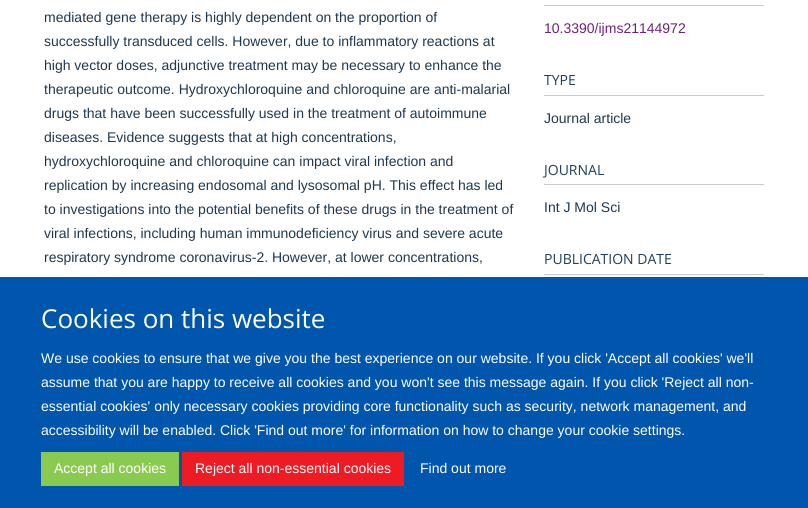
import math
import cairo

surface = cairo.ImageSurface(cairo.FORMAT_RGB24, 808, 508)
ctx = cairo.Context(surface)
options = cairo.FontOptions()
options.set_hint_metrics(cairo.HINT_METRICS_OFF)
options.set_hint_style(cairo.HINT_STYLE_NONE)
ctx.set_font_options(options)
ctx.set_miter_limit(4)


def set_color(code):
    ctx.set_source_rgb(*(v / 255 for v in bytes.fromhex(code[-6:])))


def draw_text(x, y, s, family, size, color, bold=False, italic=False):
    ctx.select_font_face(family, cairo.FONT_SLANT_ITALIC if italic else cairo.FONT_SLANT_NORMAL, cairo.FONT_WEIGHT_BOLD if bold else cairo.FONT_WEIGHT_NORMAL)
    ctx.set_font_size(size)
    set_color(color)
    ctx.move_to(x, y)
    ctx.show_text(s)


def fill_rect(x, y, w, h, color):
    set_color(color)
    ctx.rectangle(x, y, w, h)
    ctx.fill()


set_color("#ffffff")
ctx.paint()
draw_text(44, 22, "mediated gene therapy is highly dependent on the proportion of", "Liberation Sans", 14, "#1d3850")
draw_text(44, 46, "successfully transduced cells. However, due to inflammatory reactions at", "Liberation Sans", 14, "#1d3850")
draw_text(44, 70, "high vector doses, adjunctive treatment may be necessary to enhance the", "Liberation Sans", 14, "#1d3850")
draw_text(44, 94, "therapeutic outcome. Hydroxychloroquine and chloroquine are anti-malarial", "Liberation Sans", 14, "#1d3850")
draw_text(44, 118, "drugs that have been successfully used in the treatment of autoimmune", "Liberation Sans", 14, "#1d3850")
draw_text(44, 142, "diseases. Evidence suggests that at high concentrations,", "Liberation Sans", 14, "#1d3850")
draw_text(44, 166, "hydroxychloroquine and chloroquine can impact viral infection and", "Liberation Sans", 14, "#1d3850")
draw_text(44, 190, "replication by increasing endosomal and lysosomal pH. This effect has led", "Liberation Sans", 14, "#1d3850")
draw_text(44, 214, "to investigations into the potential benefits of these drugs in the treatment of", "Liberation Sans", 14, "#1d3850")
draw_text(44, 238, "viral infections, including human immunodeficiency virus and severe acute", "Liberation Sans", 14, "#1d3850")
draw_text(44, 262, "respiratory syndrome coronavirus-2. However, at lower concentrations,", "Liberation Sans", 14, "#1d3850")
fill_rect(544, 5, 220, 1, "#c6cacf")
draw_text(544, 33, "10.3390/ijms21144972", "Liberation Sans", 14, "#6f2078")
fill_rect(544, 95, 220, 1, "#c6cacf")
draw_text(544, 85, "TYPE", "Open Sans", 14, "#203e58")
draw_text(544, 123, "Journal article", "Liberation Sans", 14, "#1d3850")
fill_rect(544, 184, 220, 1, "#c6cacf")
draw_text(544, 175, "JOURNAL", "Open Sans", 14, "#203e58")
draw_text(544, 212, "Int J Mol Sci", "Liberation Sans", 14, "#1d3850")
fill_rect(544, 274, 220, 1, "#c6cacf")
draw_text(544, 264, "PUBLICATION DATE", "Open Sans", 14, "#203e58")
fill_rect(0, 277, 808, 231, "#0055ad")
draw_text(41, 328, "Cookies on this website", "Open Sans", 26, "#ffffff")
draw_text(41, 363, "We use cookies to ensure that we give you the best experience on our website. If you click 'Accept all cookies' we'll", "Liberation Sans", 14, "#ffffff")
draw_text(41, 387, "assume that you are happy to receive all cookies and you won't see this message again. If you click 'Reject all non-", "Liberation Sans", 14, "#ffffff")
draw_text(41, 411, "essential cookies' only necessary cookies providing core functionality such as security, network management, and", "Liberation Sans", 14, "#ffffff")
draw_text(41, 435, "accessibility will be enabled. Click 'Find out more' for information on how to change your cookie settings.", "Liberation Sans", 14, "#ffffff")
fill_rect(41, 452, 138, 34, "#8bca50")
draw_text(54, 473, "Accept all cookies", "Liberation Sans", 14, "#ffffff")
fill_rect(182, 452, 222, 34, "#ed1c24")
draw_text(195, 473, "Reject all non-essential cookies", "Liberation Sans", 14, "#ffffff")
draw_text(420, 473, "Find out more", "Liberation Sans", 14, "#ffffff")
surface.write_to_png("output.png")
